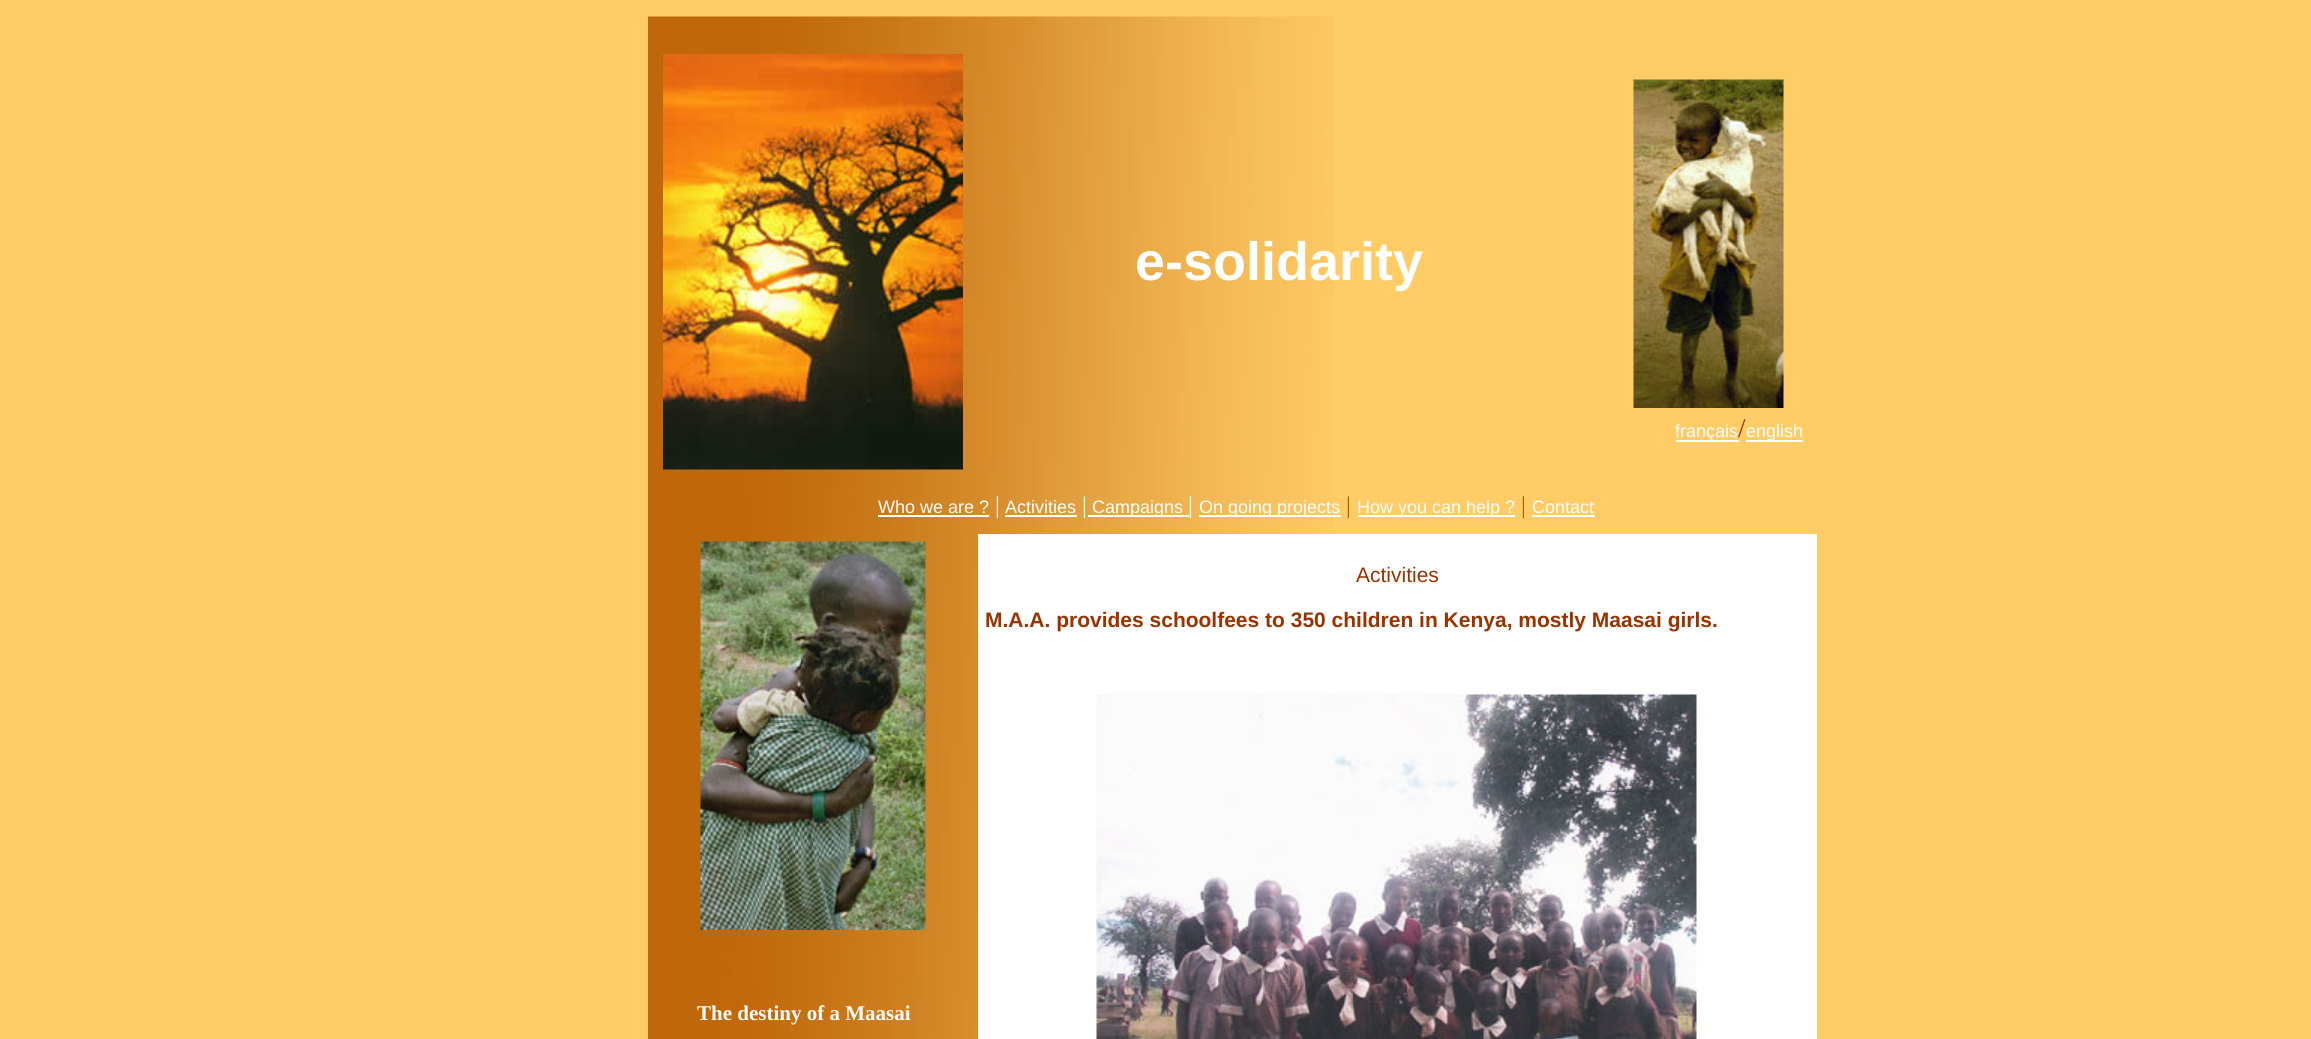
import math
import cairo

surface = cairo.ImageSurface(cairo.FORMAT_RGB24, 2311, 1039)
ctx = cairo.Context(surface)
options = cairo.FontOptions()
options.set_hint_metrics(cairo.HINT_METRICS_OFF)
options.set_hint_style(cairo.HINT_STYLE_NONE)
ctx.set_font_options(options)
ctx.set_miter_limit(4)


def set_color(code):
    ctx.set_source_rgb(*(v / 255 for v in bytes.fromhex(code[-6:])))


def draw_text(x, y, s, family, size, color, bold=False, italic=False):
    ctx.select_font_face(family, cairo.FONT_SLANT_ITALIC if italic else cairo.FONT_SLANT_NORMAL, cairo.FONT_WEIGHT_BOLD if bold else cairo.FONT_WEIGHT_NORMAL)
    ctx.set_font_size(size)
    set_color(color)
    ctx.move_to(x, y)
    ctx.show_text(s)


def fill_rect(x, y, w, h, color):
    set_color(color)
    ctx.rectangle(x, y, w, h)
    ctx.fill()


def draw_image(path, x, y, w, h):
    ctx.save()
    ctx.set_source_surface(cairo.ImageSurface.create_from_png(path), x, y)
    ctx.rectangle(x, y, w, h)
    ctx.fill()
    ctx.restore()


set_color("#ffcc66")
ctx.paint()
draw_image("assets/img1.png", 648, 16, 685, 1023)
draw_image("assets/img2.png", 663, 54, 300, 416)
draw_text(1135, 280, "e-solidarity", "Liberation Sans", 54, "#ffffff", bold=True)
draw_image("assets/img3.png", 1633, 79, 151, 329)
fill_rect(1676, 440, 63, 2, "#ffffff")
draw_text(1675, 437, "français", "Liberation Sans", 18, "#ffffff")
draw_text(1738, 437, "/", "Liberation Serif", 27, "#993300")
fill_rect(1746, 440, 57, 2, "#ffffff")
draw_text(1746, 437, "english", "Liberation Sans", 18, "#ffffff")
draw_text(878, 513, "Who we are ?", "Liberation Sans", 18, "#ffffff")
fill_rect(878, 515, 111, 2, "#ffffff")
draw_text(995, 513, "|", "Liberation Serif", 24, "#ffffff")
draw_text(1005, 513, "Activities", "Liberation Sans", 18, "#ffffff")
fill_rect(1005, 515, 72, 2, "#ffffff")
draw_text(1082, 513, "|", "Liberation Serif", 24, "#ffffff")
fill_rect(1088, 515, 101, 2, "#ffffff")
draw_text(1092, 513, "Campaigns", "Liberation Sans", 18, "#ffffff")
draw_text(1188, 513, "|", "Liberation Serif", 24, "#ffffff")
fill_rect(1199, 515, 142, 2, "#ffffff")
draw_text(1199, 513, "On going projects", "Liberation Sans", 18, "#ffffff")
draw_text(1346, 513, "|", "Liberation Serif", 24, "#996600")
fill_rect(1358, 515, 157, 2, "#ffffff")
draw_text(1357, 513, "How you can help ?", "Liberation Sans", 18, "#ffffff")
draw_text(1521, 513, "|", "Liberation Serif", 24, "#996600")
draw_text(1532, 513, "Contact", "Liberation Sans", 18, "#ffffff")
fill_rect(1532, 515, 63, 2, "#ffffff")
fill_rect(978, 534, 839, 505, "#ffffff")
draw_text(1356, 582, "Activities", "Liberation Sans", 21, "#993300")
draw_text(985, 627, "M.A.A. provides schoolfees to 350 children in Kenya, mostly Maasai girls.", "Liberation Sans", 21, "#993300", bold=True)
draw_image("assets/img4.png", 1096, 694, 601, 345)
draw_image("assets/img5.png", 700, 541, 226, 389)
draw_text(697, 1020, "The destiny of a Maasai", "Liberation Serif", 21, "#ffffff", bold=True)
surface.write_to_png("output.png")
